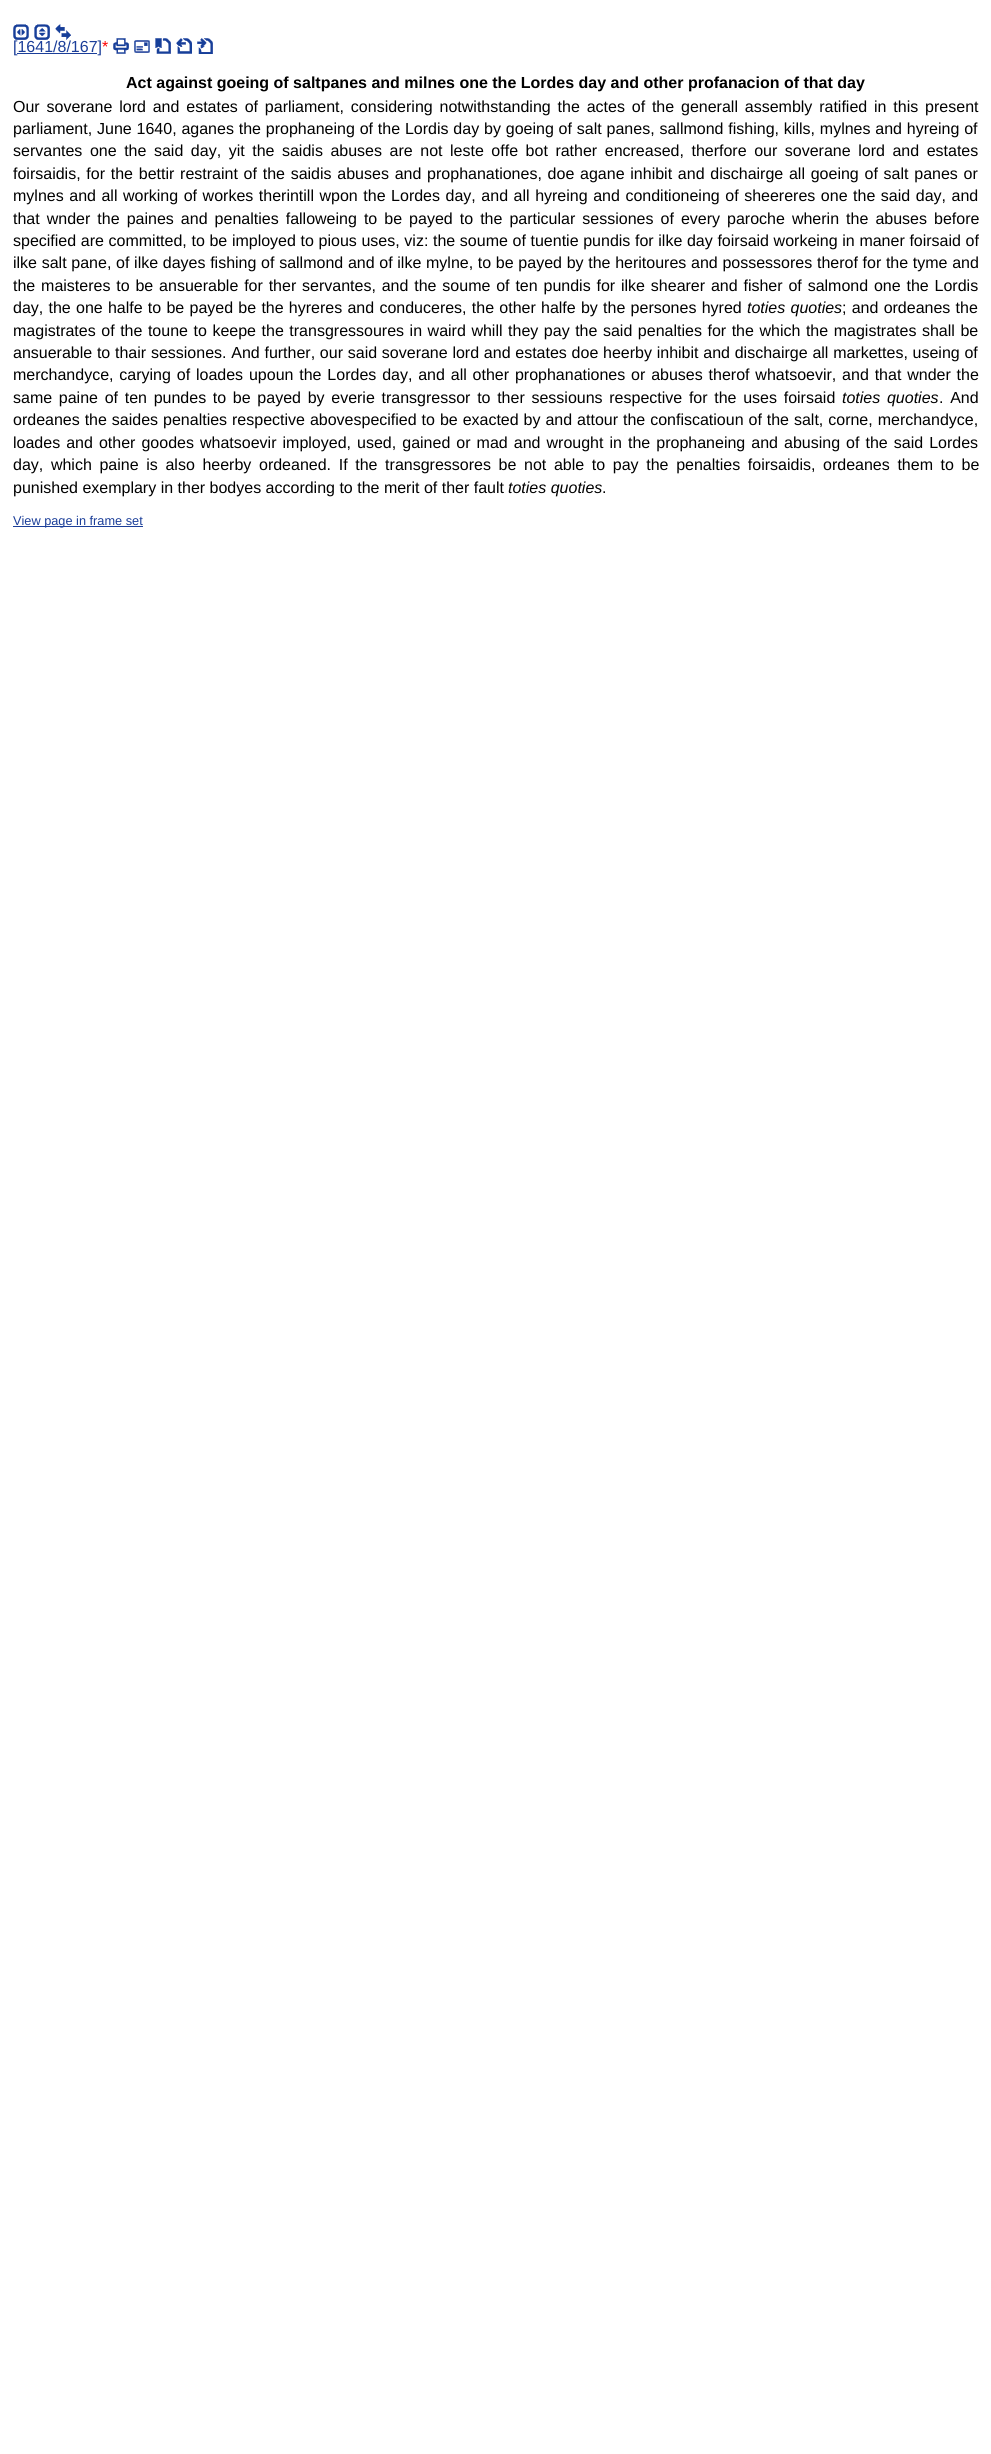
import math
import cairo

surface = cairo.ImageSurface(cairo.FORMAT_RGB24, 991, 2454)
ctx = cairo.Context(surface)
options = cairo.FontOptions()
options.set_hint_metrics(cairo.HINT_METRICS_OFF)
options.set_hint_style(cairo.HINT_STYLE_NONE)
ctx.set_font_options(options)
ctx.set_miter_limit(4)


def set_color(code):
    ctx.set_source_rgb(*(v / 255 for v in bytes.fromhex(code[-6:])))


def draw_text(x, y, s, family, size, color, bold=False, italic=False):
    ctx.select_font_face(family, cairo.FONT_SLANT_ITALIC if italic else cairo.FONT_SLANT_NORMAL, cairo.FONT_WEIGHT_BOLD if bold else cairo.FONT_WEIGHT_NORMAL)
    ctx.set_font_size(size)
    set_color(color)
    ctx.move_to(x, y)
    ctx.show_text(s)


def draw_spaced(x, y, s, letter, word):
    ctx.move_to(x, y)
    for ch in s:
        ctx.show_text(ch)
        ctx.rel_move_to(letter + word * (ch == ' '), 0)


def fill_rect(x, y, w, h, color):
    set_color(color)
    ctx.rectangle(x, y, w, h)
    ctx.fill()


def draw_image(path, x, y, w, h):
    ctx.save()
    ctx.set_source_surface(cairo.ImageSurface.create_from_png(path), x, y)
    ctx.rectangle(x, y, w, h)
    ctx.fill()
    ctx.restore()


set_color("#ffffff")
ctx.paint()
draw_image("assets/img1.png", 13, 24, 16, 16)
draw_image("assets/img2.png", 34, 24, 16, 16)
draw_image("assets/img3.png", 55, 24, 16, 16)
draw_text(13, 52, "[1641/8/167]", "Liberation Sans", 16, "#1b3e99")
draw_text(102, 52, "*", "Liberation Sans", 16, "#ff0000")
draw_image("assets/img4.png", 113, 38, 16, 16)
draw_image("assets/img5.png", 134, 40, 16, 13)
draw_image("assets/img6.png", 155, 38, 16, 16)
draw_image("assets/img7.png", 176, 38, 16, 16)
draw_image("assets/img8.png", 197, 38, 16, 16)
fill_rect(17, 53, 80, 1, "#1b3e99")
draw_text(126, 88, "Act against goeing of saltpanes and milnes one the Lordes day and other profanacion of that day", "Liberation Sans", 16, "#000000", bold=True)
ctx.select_font_face("Liberation Sans")
draw_spaced(13, 112, "Our soverane lord and estates of parliament, considering notwithstanding the actes of the generall assembly ratified in this present", 0, 2.4)
draw_spaced(13, 134, "parliament, June 1640, aganes the prophaneing of the Lordis day by goeing of salt panes, sallmond fishing, kills, mylnes and hyreing of", 0, 0.4)
draw_spaced(13, 156, "servantes one the said day, yit the saidis abuses are not leste offe bot rather encreased, therfore our soverane lord and estates", 0, 3.1)
draw_spaced(13, 179, "foirsaidis, for the bettir restraint of the saidis abuses and prophanationes, doe agane inhibit and dischairge all goeing of salt panes or", 0, 1.3)
draw_spaced(13, 201, "mylnes and all working of workes therintill wpon the Lordes day, and all hyreing and conditioneing of sheereres one the said day, and", 0, 1.1)
draw_spaced(13, 224, "that wnder the paines and penalties falloweing to be payed to the particular sessiones of every paroche wherin the abuses before", 0, 2.6)
draw_spaced(13, 246, "specified are committed, to be imployed to pious uses, viz: the soume of tuentie pundis for ilke day foirsaid workeing in maner foirsaid of", 0, 0.2)
draw_spaced(13, 268, "ilke salt pane, of ilke dayes fishing of sallmond and of ilke mylne, to be payed by the heritoures and possessores therof for the tyme and", 0, 0.25)
draw_spaced(13, 291, "the maisteres to be ansuerable for ther servantes, and the soume of ten pundis for ilke shearer and fisher of salmond one the Lordis", 0, 1.4)
draw_spaced(13, 313, "day, the one halfe to be payed be the hyreres and conduceres, the other halfe by the persones hyred", 0, 0.8)
ctx.select_font_face("Liberation Sans", cairo.FONT_SLANT_ITALIC)
draw_spaced(747, 313, "toties quoties", 0, 0.8)
ctx.select_font_face("Liberation Sans")
draw_spaced(842, 313, "; and ordeanes the", 0, 0.8)
draw_spaced(13, 336, "magistrates of the toune to keepe the transgressoures in waird whill they pay the said penalties for the which the magistrates shall be", 0, 1.1)
draw_spaced(13, 358, "ansuerable to thair sessiones. And further, our said soverane lord and estates doe heerby inhibit and dischairge all markettes, useing of", 0, 0.3)
draw_spaced(13, 380, "merchandyce, carying of loades upoun the Lordes day, and all other prophanationes or abuses therof whatsoevir, and that wnder the", 0, 1.4)
draw_spaced(13, 403, "same paine of ten pundes to be payed by everie transgressor to ther sessiouns respective for the uses foirsaid", 0, 2.25)
ctx.select_font_face("Liberation Sans", cairo.FONT_SLANT_ITALIC)
draw_spaced(842, 403, "toties quoties", 0, 2.25)
ctx.select_font_face("Liberation Sans")
draw_spaced(939, 403, ". And", 0, 2.25)
draw_spaced(13, 425, "ordeanes the saides penalties respective abovespecified to be exacted by and attour the confiscatioun of the salt, corne, merchandyce,", 0, 0.5)
draw_spaced(13, 448, "loades and other goodes whatsoevir imployed, used, gained or mad and wrought in the prophaneing and abusing of the said Lordes", 0, 1.6)
draw_spaced(13, 470, "day, which paine is also heerby ordeaned. If the transgressores be not able to pay the penalties foirsaidis, ordeanes them to be", 0, 3.2)
draw_text(13, 493, "punished exemplary in ther bodyes according to the merit of ther fault", "Liberation Sans", 16, "#000000")
draw_text(508, 493, "toties quoties", "Liberation Sans", 16, "#000000", italic=True)
draw_text(602, 493, ".", "Liberation Sans", 16, "#000000")
fill_rect(13, 526, 130, 1, "#1b3e99")
draw_text(13, 525, "View page in frame set", "Liberation Sans", 12.75, "#1b3e99")
surface.write_to_png("output.png")
